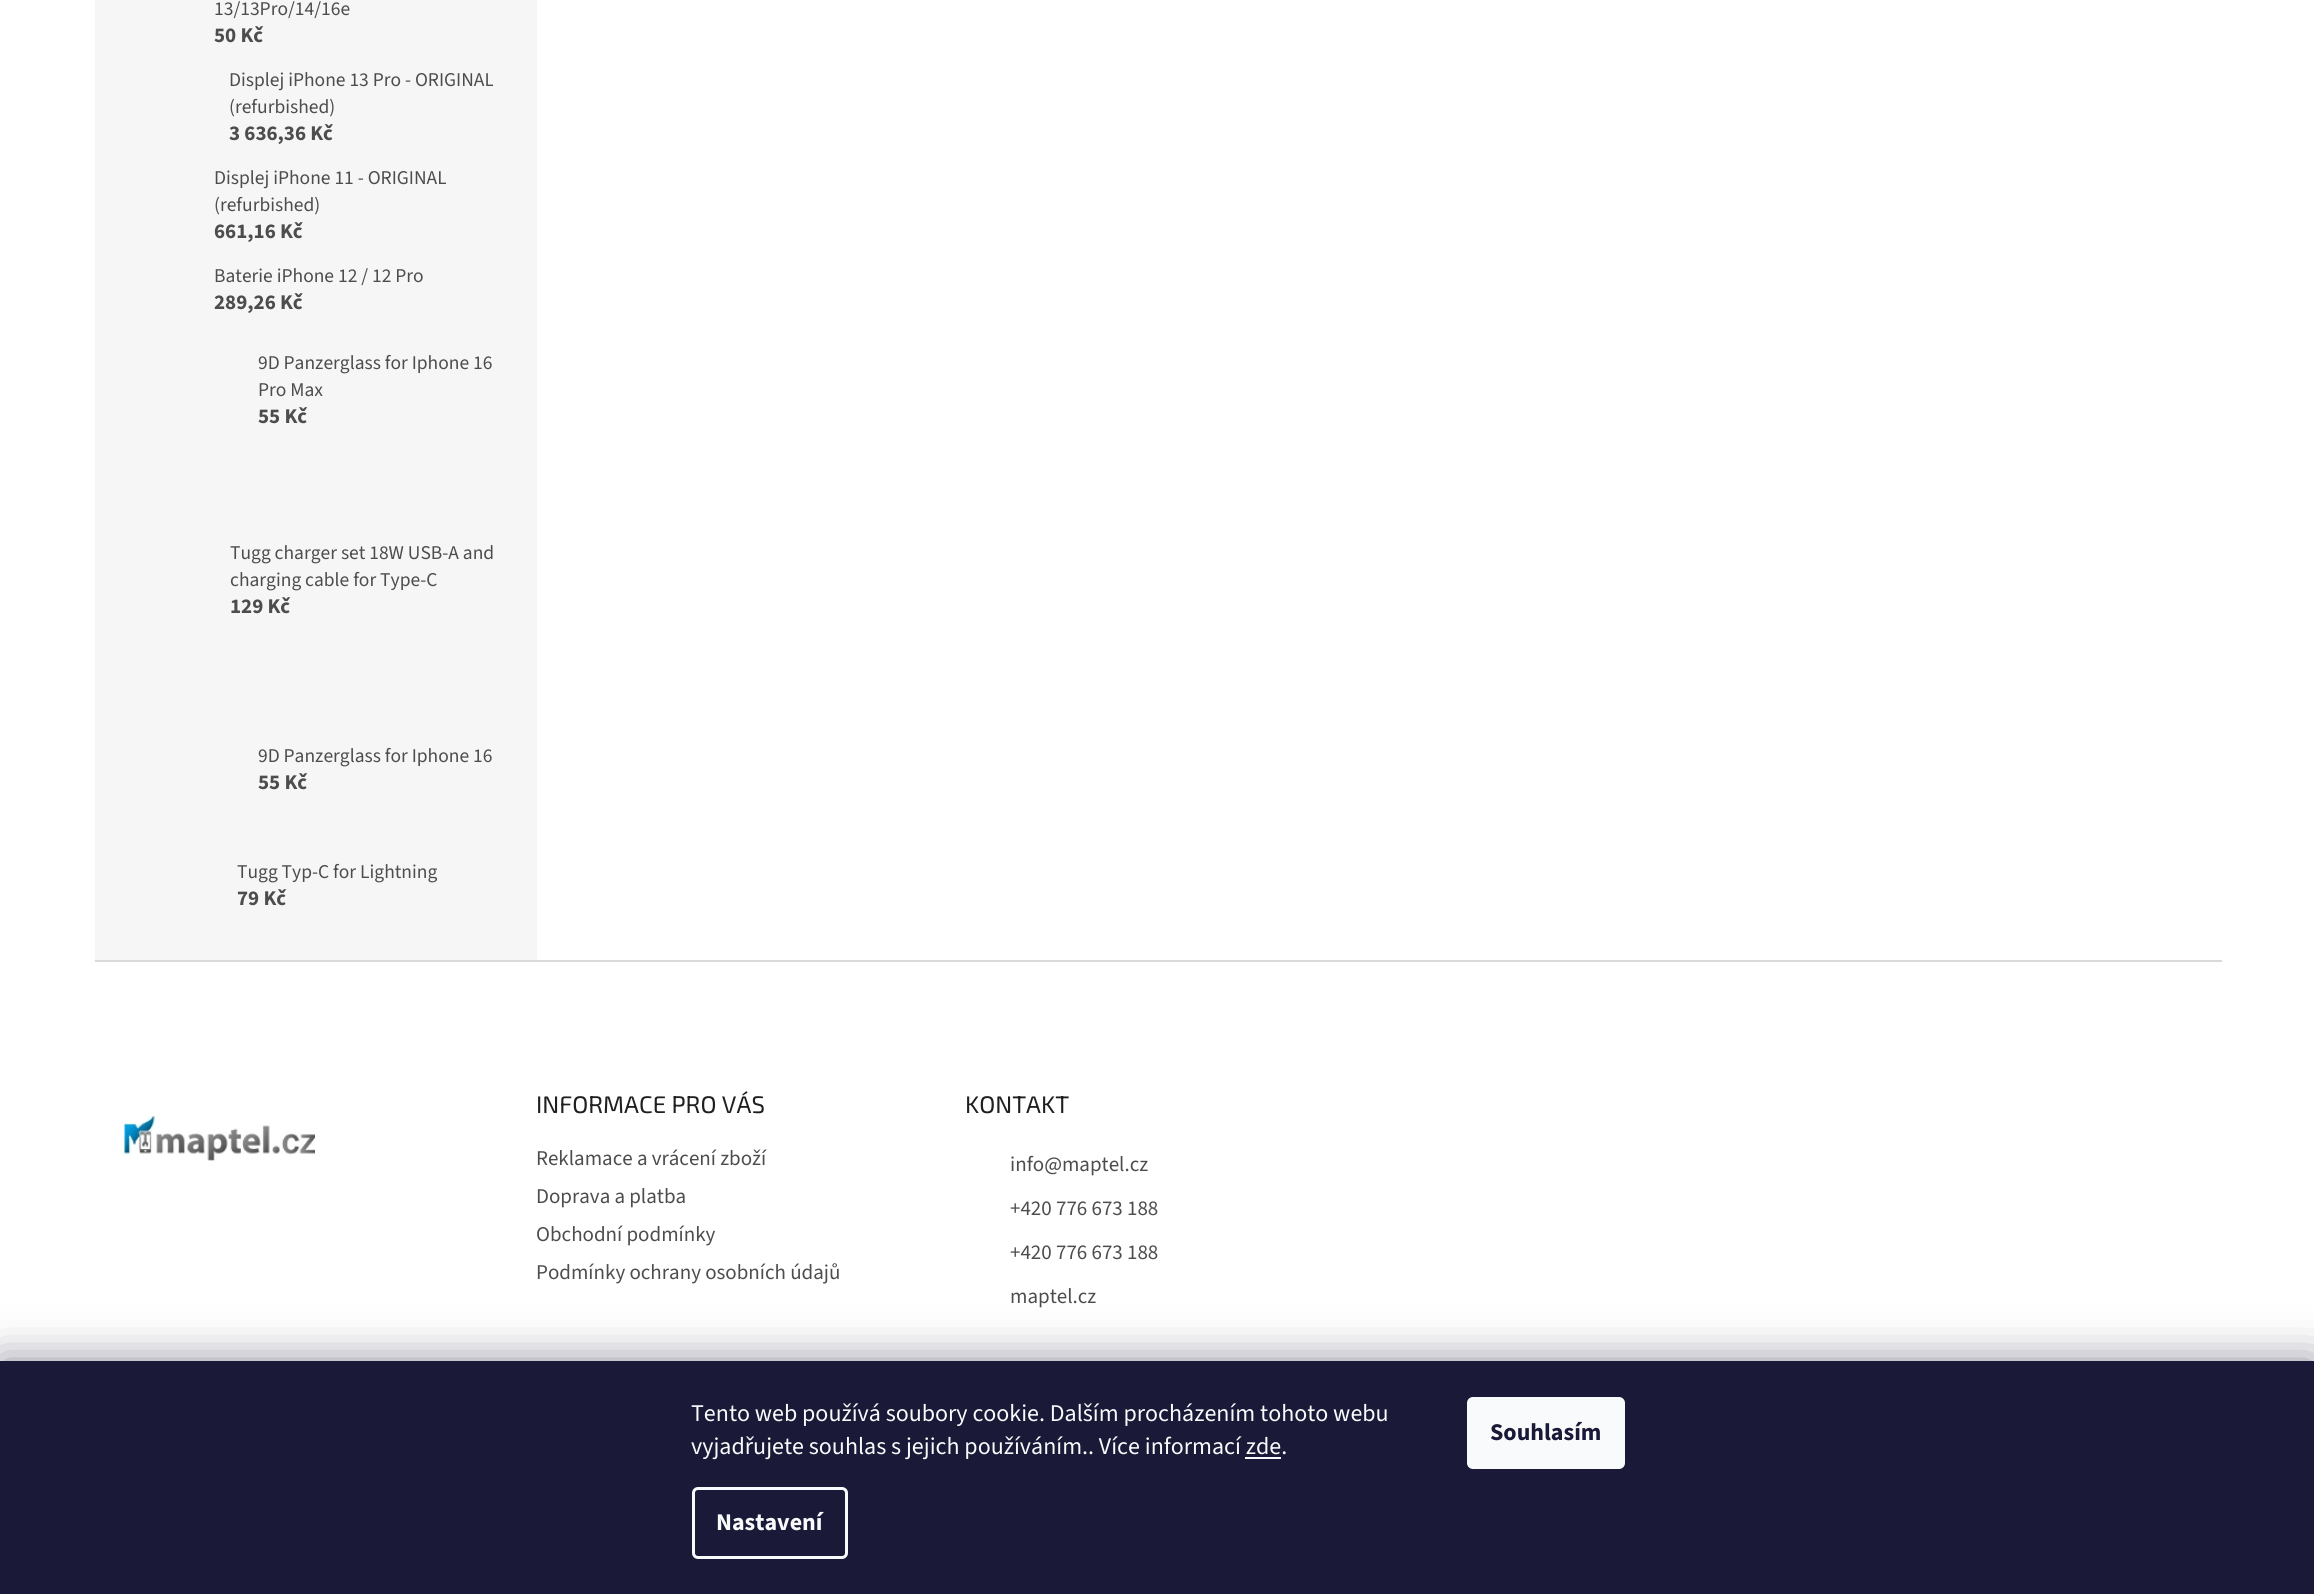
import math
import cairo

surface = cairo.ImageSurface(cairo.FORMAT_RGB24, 2314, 1594)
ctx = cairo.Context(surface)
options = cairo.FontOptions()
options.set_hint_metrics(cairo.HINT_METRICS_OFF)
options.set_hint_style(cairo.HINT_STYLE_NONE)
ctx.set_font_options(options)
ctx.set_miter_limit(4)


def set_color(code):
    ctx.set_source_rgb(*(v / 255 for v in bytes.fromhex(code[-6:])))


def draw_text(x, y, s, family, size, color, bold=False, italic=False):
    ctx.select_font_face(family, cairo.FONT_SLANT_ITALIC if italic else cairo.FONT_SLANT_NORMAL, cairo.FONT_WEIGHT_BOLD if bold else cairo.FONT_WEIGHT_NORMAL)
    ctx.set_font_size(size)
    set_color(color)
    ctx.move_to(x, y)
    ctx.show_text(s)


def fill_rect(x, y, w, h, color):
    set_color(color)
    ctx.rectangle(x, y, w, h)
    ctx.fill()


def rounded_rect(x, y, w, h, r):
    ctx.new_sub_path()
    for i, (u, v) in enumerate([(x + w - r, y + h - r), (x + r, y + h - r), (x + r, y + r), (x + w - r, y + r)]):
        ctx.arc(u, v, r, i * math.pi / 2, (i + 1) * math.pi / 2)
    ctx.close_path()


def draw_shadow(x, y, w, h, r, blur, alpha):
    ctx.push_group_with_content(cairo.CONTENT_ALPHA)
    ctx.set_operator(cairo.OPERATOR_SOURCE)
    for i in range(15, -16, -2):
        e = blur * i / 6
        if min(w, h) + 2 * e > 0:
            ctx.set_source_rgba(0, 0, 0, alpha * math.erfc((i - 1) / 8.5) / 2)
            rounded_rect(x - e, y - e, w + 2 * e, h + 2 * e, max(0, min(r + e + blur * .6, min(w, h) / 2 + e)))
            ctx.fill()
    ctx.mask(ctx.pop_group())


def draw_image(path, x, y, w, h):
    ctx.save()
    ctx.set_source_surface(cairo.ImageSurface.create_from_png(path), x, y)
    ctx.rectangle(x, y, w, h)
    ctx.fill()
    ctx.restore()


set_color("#ffffff")
ctx.paint()
fill_rect(95, 0, 442, 960, "#f6f6f6")
draw_text(214, 15, "13/13Pro/14/16e", "Source Sans 3", 19.5, "#4d4d4d")
draw_text(214, 42, "50 Kč", "Source Sans 3", 21, "#4d4d4d", bold=True)
draw_text(229, 86, "Displej iPhone 13 Pro - ORIGINAL", "Source Sans 3", 19.5, "#4d4d4d")
draw_text(229, 113, "(refurbished)", "Source Sans 3", 19.5, "#4d4d4d")
draw_text(229, 140, "3 636,36 Kč", "Source Sans 3", 21, "#4d4d4d", bold=True)
draw_text(214, 184, "Displej iPhone 11 - ORIGINAL", "Source Sans 3", 19.5, "#4d4d4d")
draw_text(214, 211, "(refurbished)", "Source Sans 3", 19.5, "#4d4d4d")
draw_text(214, 238, "661,16 Kč", "Source Sans 3", 21, "#4d4d4d", bold=True)
draw_text(214, 282, "Baterie iPhone 12 / 12 Pro", "Source Sans 3", 19.5, "#4d4d4d")
draw_text(214, 309, "289,26 Kč", "Source Sans 3", 21, "#4d4d4d", bold=True)
draw_text(258, 369, "9D Panzerglass for Iphone 16", "Source Sans 3", 19.5, "#4d4d4d")
draw_text(258, 396, "Pro Max", "Source Sans 3", 19.5, "#4d4d4d")
draw_text(258, 423, "55 Kč", "Source Sans 3", 21, "#4d4d4d", bold=True)
draw_text(230, 559, "Tugg charger set 18W USB-A and", "Source Sans 3", 19.5, "#4d4d4d")
draw_text(230, 586, "charging cable for Type-C", "Source Sans 3", 19.5, "#4d4d4d")
draw_text(230, 613, "129 Kč", "Source Sans 3", 21, "#4d4d4d", bold=True)
draw_text(258, 762, "9D Panzerglass for Iphone 16", "Source Sans 3", 19.5, "#4d4d4d")
draw_text(258, 789, "55 Kč", "Source Sans 3", 21, "#4d4d4d", bold=True)
draw_text(237, 878, "Tugg Typ-C for Lightning", "Source Sans 3", 19.5, "#4d4d4d")
draw_text(237, 905, "79 Kč", "Source Sans 3", 21, "#4d4d4d", bold=True)
draw_image("assets/img1.png", 124, 1114, 191, 47)
fill_rect(95, 960, 2127, 2, "#dadada")
draw_text(536, 1113, "INFORMACE PRO VÁS", "Exo 2", 24, "#1f1f1f")
draw_text(536, 1165, "Reklamace a vrácení zboží", "Source Sans 3", 21, "#4d4d4d")
draw_text(536, 1203, "Doprava a platba", "Source Sans 3", 21, "#4d4d4d")
draw_text(536, 1241, "Obchodní podmínky", "Source Sans 3", 21, "#4d4d4d")
draw_text(536, 1279, "Podmínky ochrany osobních údajů", "Source Sans 3", 21, "#4d4d4d")
draw_text(965, 1113, "KONTAKT", "Exo 2", 24, "#1f1f1f")
draw_text(1010, 1171, "info@maptel.cz", "Source Sans 3", 21, "#4d4d4d")
draw_text(1010, 1215, "+420 776 673 188", "Source Sans 3", 21, "#4d4d4d")
draw_text(1010, 1259, "+420 776 673 188", "Source Sans 3", 21, "#4d4d4d")
draw_text(1010, 1303, "maptel.cz", "Source Sans 3", 21, "#4d4d4d")
set_color("#1b1939")
draw_shadow(0, 1361, 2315, 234, 0, 22.5, 0.5)
fill_rect(0, 1361, 2314, 233, "#1a1937")
draw_text(691, 1421, "Tento web používá soubory cookie. Dalším procházením tohoto webu", "Source Sans 3", 24, "#f8fafb")
draw_text(691, 1454, "vyjadřujete souhlas s jejich používáním.. Více informací zde.", "Source Sans 3", 24, "#f8fafb")
fill_rect(1245, 1457, 36, 2, "#f8fafb")
rounded_rect(693.5, 1488.5, 153, 69, 4.5)
ctx.set_line_width(3)
ctx.stroke()
draw_text(716, 1530, "Nastavení", "Source Sans 3", 24, "#f8fafb", bold=True)
rounded_rect(1467, 1397, 158, 72, 6)
ctx.fill()
draw_text(1490, 1440, "Souhlasím", "Source Sans 3", 24, "#1a1937", bold=True)
surface.write_to_png("output.png")
